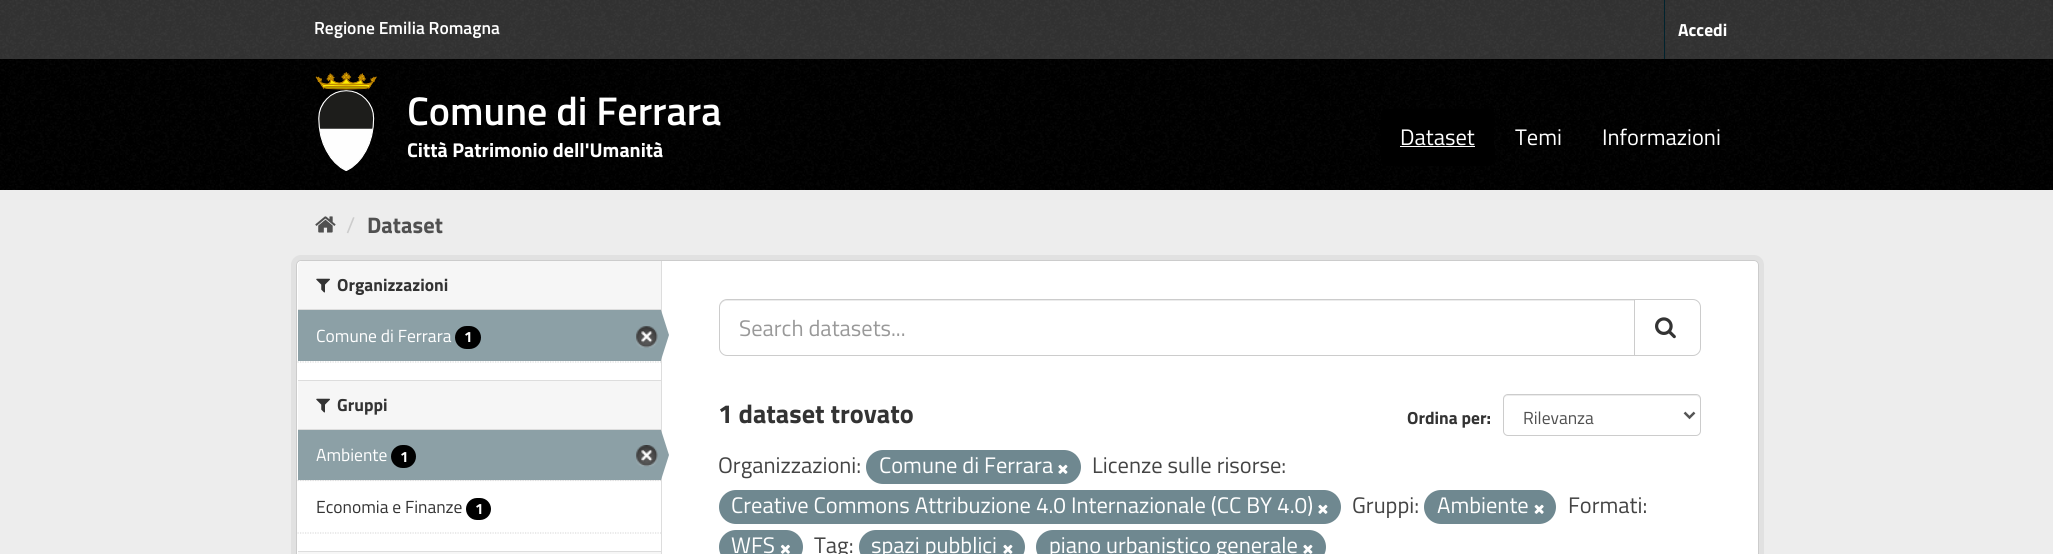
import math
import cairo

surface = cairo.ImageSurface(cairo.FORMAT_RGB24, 2053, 554)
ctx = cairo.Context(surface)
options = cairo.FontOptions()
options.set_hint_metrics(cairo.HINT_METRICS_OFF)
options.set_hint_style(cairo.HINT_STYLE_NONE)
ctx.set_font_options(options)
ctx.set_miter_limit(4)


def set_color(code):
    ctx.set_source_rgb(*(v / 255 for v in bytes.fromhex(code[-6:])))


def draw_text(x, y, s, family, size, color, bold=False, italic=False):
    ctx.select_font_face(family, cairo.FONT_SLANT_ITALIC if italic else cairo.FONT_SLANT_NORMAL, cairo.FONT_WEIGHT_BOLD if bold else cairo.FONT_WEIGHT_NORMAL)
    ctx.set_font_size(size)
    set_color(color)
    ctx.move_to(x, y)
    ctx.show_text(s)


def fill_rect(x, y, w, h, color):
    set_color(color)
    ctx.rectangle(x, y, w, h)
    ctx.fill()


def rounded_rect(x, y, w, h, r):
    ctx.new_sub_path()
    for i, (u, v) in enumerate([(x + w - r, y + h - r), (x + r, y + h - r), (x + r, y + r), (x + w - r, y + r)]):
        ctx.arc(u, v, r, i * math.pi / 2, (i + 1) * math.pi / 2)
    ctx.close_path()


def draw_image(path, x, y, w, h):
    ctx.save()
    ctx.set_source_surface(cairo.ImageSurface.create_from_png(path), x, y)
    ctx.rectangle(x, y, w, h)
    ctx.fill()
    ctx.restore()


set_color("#333333")
ctx.paint()
draw_image("assets/img1.png", 0, 0, 2053, 58)
draw_text(314, 34, "Regione Emilia Romagna", "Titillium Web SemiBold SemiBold", 17.5, "#ffffff")
fill_rect(1664, 0, 1, 59, "#00232e")
draw_text(1678, 36, "Accedi", "Titillium Web", 17.5, "#ffffff", bold=True)
fill_rect(0, 59, 2053, 131, "#000000")
draw_image("assets/img2.png", 0, 59, 2053, 131)
draw_image("assets/img3.png", 315, 72, 62, 99)
draw_text(407, 125, "Comune di Ferrara", "Titillium Web SemiBold SemiBold", 40, "#ffffff")
draw_text(407, 157, "Città Patrimonio dell'Umanità", "Titillium Web", 20, "#ffffff", bold=True)
set_color("#000000")
rounded_rect(1381, 109, 113, 57, 5)
ctx.fill()
draw_text(1400, 145, "Dataset", "Titillium Web", 22.5, "#ffffff")
fill_rect(1400, 146, 75, 1, "#ffffff")
draw_text(1515, 145, "Temi", "Titillium Web", 22.5, "#ffffff")
draw_text(1602, 145, "Informazioni", "Titillium Web", 22.5, "#ffffff")
fill_rect(0, 190, 2053, 364, "#ededed")
draw_image("assets/img4.png", 315, 216, 21, 17)
draw_text(346, 233, "/", "Titillium Web", 22.5, "#cccccc")
draw_text(367, 233, "Dataset", "Titillium Web", 22.5, "#505050", bold=True)
rounded_rect(293.5, 257.5, 1468, 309, 7.5)
set_color("#e1e1e1")
ctx.set_line_width(5)
ctx.stroke()
set_color("#ffffff")
rounded_rect(296.5, 260.5, 1462, 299, 4.5)
ctx.fill_preserve()
set_color("#cccccc")
ctx.set_line_width(1)
ctx.stroke()
set_color("#f6f6f6")
ctx.new_path()
ctx.move_to(302, 261)
ctx.line_to(661, 261)
ctx.line_to(661, 310)
ctx.line_to(298, 310)
ctx.line_to(298, 265)
ctx.curve_to(298, 263, 300, 261, 302, 261)
ctx.close_path()
ctx.fill()
fill_rect(298, 309, 363, 1, "#dddddd")
draw_image("assets/img5.png", 316, 278, 14, 15)
draw_text(337, 291, "Organizzazioni", "Titillium Web", 17.5, "#333333", bold=True)
fill_rect(298, 310, 363, 51, "#8ca0a6")
draw_text(316, 342, "Comune di Ferrara", "Titillium Web", 17.5, "#ffffff")
set_color("#000000")
rounded_rect(455, 326, 26, 23, 11.5)
ctx.fill()
draw_text(464, 342, "1", "Titillium Web", 15, "#ffffff", bold=True)
draw_image("assets/img6.png", 636, 326, 22, 22)
fill_rect(661, 261, 1, 293, "#dddddd")
set_color("#8ca0a6")
ctx.new_path()
ctx.move_to(661, 360)
ctx.line_to(661, 310)
ctx.line_to(669, 335)
ctx.close_path()
ctx.fill()
ctx.new_path()
ctx.move_to(297.5, 362)
ctx.line_to(661, 362)
set_color("#dddddd")
ctx.set_line_width(1.2)
ctx.set_dash([1.25, 1.25])
ctx.stroke()
fill_rect(298, 381, 363, 48, "#f6f6f6")
fill_rect(298, 380, 363, 1, "#dddddd")
fill_rect(298, 429, 363, 1, "#dddddd")
draw_image("assets/img5.png", 316, 398, 14, 15)
draw_text(337, 411, "Gruppi", "Titillium Web", 17.5, "#333333", bold=True)
fill_rect(298, 480, 362, 1, "#f6f6f6")
ctx.new_path()
ctx.move_to(297.5, 480.5)
ctx.line_to(661, 480.5)
set_color("#dddddd")
ctx.stroke()
fill_rect(298, 430, 363, 50, "#8ca0a6")
draw_text(316, 461, "Ambiente", "Titillium Web", 17.5, "#ffffff")
set_color("#000000")
rounded_rect(391, 445, 25, 23, 11.5)
ctx.fill()
draw_text(400, 462, "1", "Titillium Web", 15, "#ffffff", bold=True)
draw_image("assets/img7.png", 636, 445, 22, 22)
set_color("#8ca0a6")
ctx.new_path()
ctx.move_to(661, 480)
ctx.line_to(661, 430)
ctx.line_to(669, 455)
ctx.close_path()
ctx.fill()
draw_text(316, 513, "Economia e Finanze", "Titillium Web", 17.5, "#333333")
set_color("#000000")
rounded_rect(466, 498, 25, 22, 11)
ctx.fill()
draw_text(475, 514, "1", "Titillium Web", 15, "#ffffff", bold=True)
ctx.new_path()
ctx.move_to(297.5, 533)
ctx.line_to(661, 533)
set_color("#dddddd")
ctx.stroke()
fill_rect(298, 552, 363, 2, "#f6f6f6")
fill_rect(298, 551, 363, 1, "#dddddd")
set_color("#ececec")
ctx.new_path()
ctx.move_to(726, 301)
ctx.line_to(1634, 301)
ctx.line_to(1634, 300)
ctx.line_to(726, 300)
ctx.curve_to(721, 300, 720, 304, 720, 308)
ctx.curve_to(720, 304, 723, 301, 726, 301)
ctx.close_path()
ctx.fill()
ctx.new_path()
ctx.move_to(727, 299.5)
ctx.line_to(1634.5, 299.5)
ctx.line_to(1634.5, 355.5)
ctx.line_to(727, 355.5)
ctx.curve_to(723, 355.5, 719.5, 352, 719.5, 348)
ctx.line_to(719.5, 307)
ctx.curve_to(719.5, 303, 723, 299.5, 727, 299.5)
ctx.close_path()
set_color("#cccccc")
ctx.set_line_width(1)
ctx.set_dash([])
ctx.stroke()
draw_text(739, 336, "Search datasets...", "Titillium Web", 22.5, "#999999")
set_color("#ffffff")
ctx.new_path()
ctx.move_to(1634.5, 299.5)
ctx.line_to(1693, 299.5)
ctx.curve_to(1697, 299.5, 1700.5, 303, 1700.5, 307)
ctx.line_to(1700.5, 348)
ctx.curve_to(1700.5, 352, 1697, 355.5, 1693, 355.5)
ctx.line_to(1634.5, 355.5)
ctx.close_path()
ctx.fill_preserve()
set_color("#cccccc")
ctx.stroke()
draw_image("assets/img8.png", 1655, 317, 21, 22)
draw_text(718, 423, "1 dataset trovato", "Titillium Web", 26.25, "#333333", bold=True)
draw_text(1407, 424, "Ordina per:", "Titillium Web", 17.5, "#333333", bold=True)
set_color("#ececec")
ctx.new_path()
ctx.move_to(1508, 396)
ctx.line_to(1696, 396)
ctx.curve_to(1698, 396, 1700, 398, 1700, 400)
ctx.line_to(1700, 399)
ctx.curve_to(1700, 397, 1698, 395, 1696, 395)
ctx.line_to(1508, 395)
ctx.curve_to(1506, 395, 1504, 397, 1504, 399)
ctx.line_to(1504, 400)
ctx.curve_to(1504, 398, 1505, 396, 1508, 396)
ctx.close_path()
ctx.fill()
rounded_rect(1503.5, 394.5, 197, 41, 4.5)
set_color("#cccccc")
ctx.stroke()
ctx.new_path()
ctx.move_to(1684.5, 412.5)
ctx.line_to(1689.5, 417.5)
ctx.line_to(1694.5, 412.5)
set_color("#555555")
ctx.set_line_width(2.5)
ctx.stroke()
draw_text(1523, 424, "Rilevanza", "Titillium Web", 17.5, "#505050")
draw_text(718, 473, "Organizzazioni:", "Titillium Web", 22.5, "#444444")
set_color("#6f8890")
rounded_rect(866, 450, 215, 34, 17)
ctx.fill()
draw_text(879, 473, "Comune di Ferrara", "Titillium Web", 22.5, "#ffffff")
draw_image("assets/img9.png", 1058, 464, 10, 10)
draw_text(1092, 473, "Licenze sulle risorse:", "Titillium Web", 22.5, "#444444")
set_color("#6f8890")
rounded_rect(719, 490, 622, 34, 17)
ctx.fill()
draw_text(731, 513, "Creative Commons Attribuzione 4.0 Internazionale (CC BY 4.0)", "Titillium Web", 22.5, "#ffffff")
draw_image("assets/img9.png", 1318, 504, 10, 10)
draw_text(1352, 513, "Gruppi:", "Titillium Web", 22.5, "#444444")
set_color("#6f8890")
rounded_rect(1424, 490, 132, 34, 17)
ctx.fill()
draw_text(1437, 513, "Ambiente", "Titillium Web", 22.5, "#ffffff")
draw_image("assets/img10.png", 1534, 504, 10, 10)
draw_text(1568, 513, "Formati:", "Titillium Web", 22.5, "#444444")
set_color("#6f8890")
rounded_rect(719, 530, 84, 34, 17)
ctx.fill()
draw_text(731, 553, "WFS", "Titillium Web", 22.5, "#ffffff")
draw_image("assets/img11.png", 780, 544, 10, 10)
draw_text(814, 553, "Tag:", "Titillium Web", 22.5, "#444444")
set_color("#6f8890")
rounded_rect(859, 530, 166, 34, 17)
ctx.fill()
draw_text(871, 553, "spazi pubblici", "Titillium Web", 22.5, "#ffffff")
draw_image("assets/img9.png", 1003, 544, 10, 10)
set_color("#6f8890")
rounded_rect(1036, 530, 290, 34, 17)
ctx.fill()
draw_text(1049, 553, "piano urbanistico generale", "Titillium Web", 22.5, "#ffffff")
draw_image("assets/img9.png", 1303, 544, 10, 10)
surface.write_to_png("output.png")
